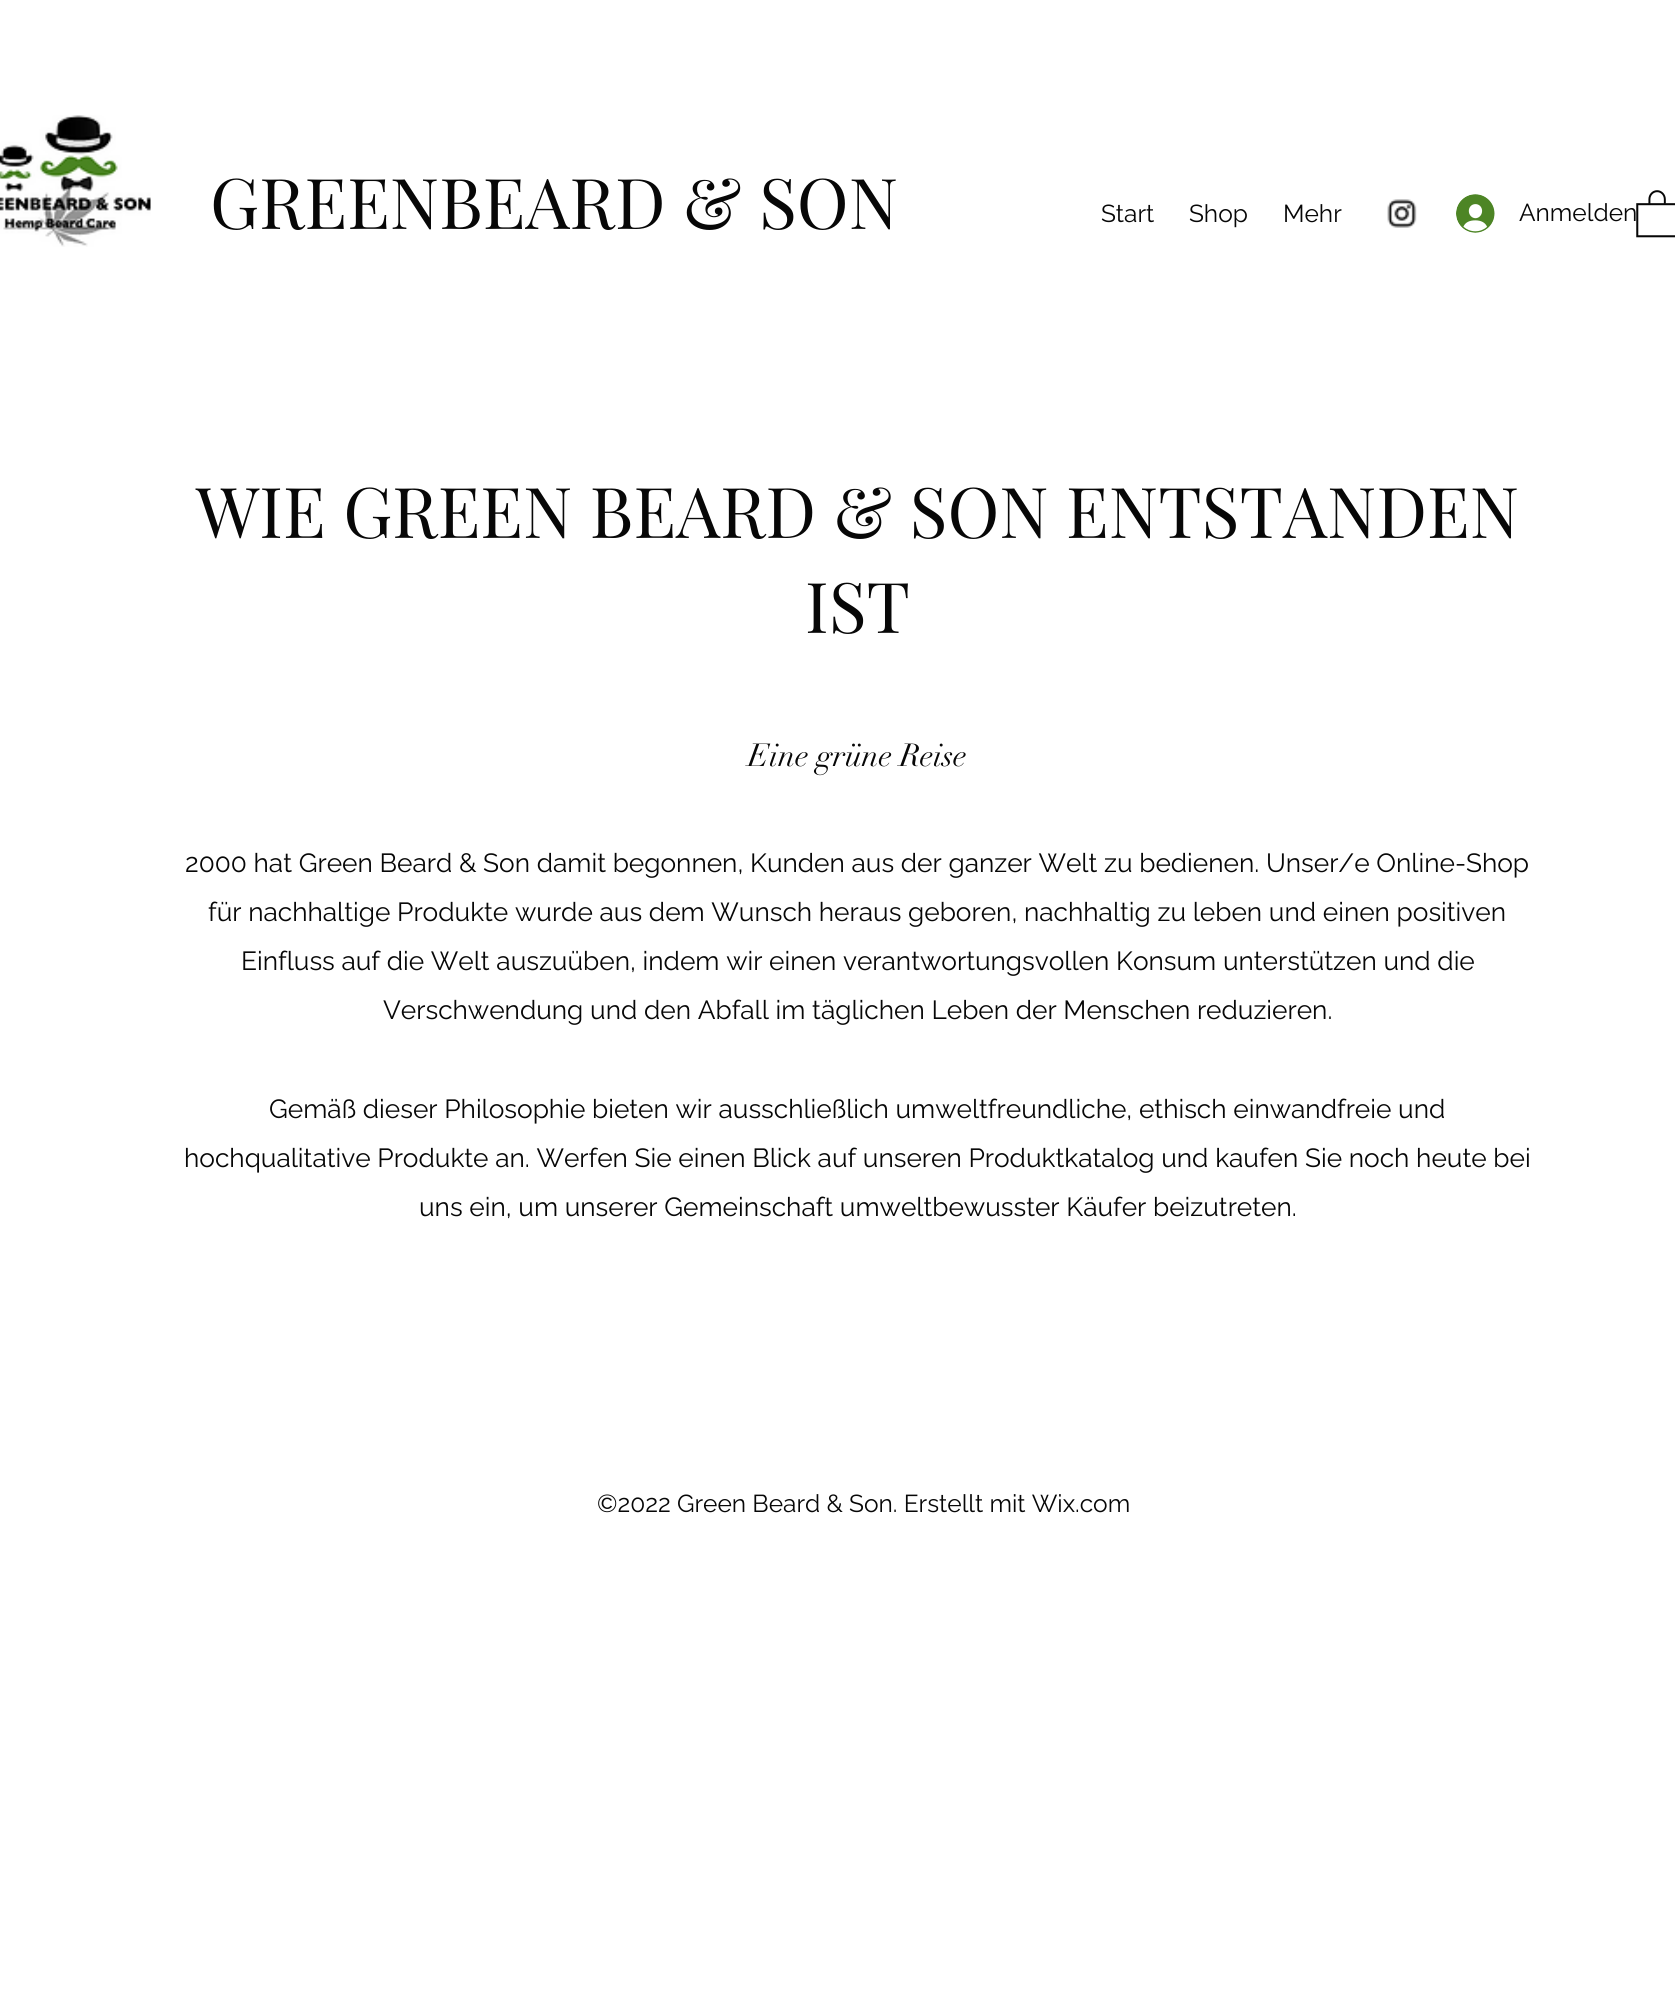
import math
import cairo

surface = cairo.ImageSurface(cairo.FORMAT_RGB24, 1675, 2016)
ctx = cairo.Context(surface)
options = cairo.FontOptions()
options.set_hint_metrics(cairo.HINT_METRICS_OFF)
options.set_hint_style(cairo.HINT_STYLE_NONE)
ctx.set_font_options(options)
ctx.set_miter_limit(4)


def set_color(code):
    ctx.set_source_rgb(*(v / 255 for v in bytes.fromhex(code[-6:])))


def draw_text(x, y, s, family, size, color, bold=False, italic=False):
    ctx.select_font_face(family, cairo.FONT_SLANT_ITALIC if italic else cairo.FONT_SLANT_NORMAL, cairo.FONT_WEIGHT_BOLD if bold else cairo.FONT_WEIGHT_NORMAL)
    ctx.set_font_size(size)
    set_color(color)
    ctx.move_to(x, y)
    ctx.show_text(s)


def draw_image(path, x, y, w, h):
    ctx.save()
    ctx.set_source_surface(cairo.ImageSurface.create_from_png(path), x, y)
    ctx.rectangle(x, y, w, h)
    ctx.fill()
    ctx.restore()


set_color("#ffffff")
ctx.paint()
draw_image("assets/img1.png", 0, 115, 151, 132)
draw_text(210, 229, "GREENBEARD & SON", "Playfair Display", 70, "#070707")
draw_text(1101, 222, "Start", "Raleway", 24.5, "#070707")
draw_text(1189, 222, "Shop", "Raleway", 24.5, "#070707")
draw_text(1283, 222, "Mehr", "Raleway", 24.5, "#070707")
draw_image("assets/img2.png", 1387, 199, 30, 29)
draw_image("assets/img3.png", 1456, 194, 39, 39)
draw_text(1519, 221, "Anmelden", "Raleway", 24.5, "#070707")
draw_image("assets/img4.png", 1636, 190, 39, 48)
draw_text(196, 538, "WIE GREEN BEARD & SON ENTSTANDEN", "Playfair Display", 70, "#070707")
draw_text(805, 633, "IST", "Playfair Display", 70, "#070707")
draw_text(748, 766, "Eine grüne Reise", "didot", 31.5, "#070707")
draw_text(185, 872, "2000 hat Green Beard & Son damit begonnen, Kunden aus der ganzer Welt zu bedienen. Unser/e Online-Shop", "Raleway", 26.25, "#070707")
draw_text(208, 921, "für nachhaltige Produkte wurde aus dem Wunsch heraus geboren, nachhaltig zu leben und einen positiven", "Raleway", 26.25, "#070707")
draw_text(241, 970, "Einfluss auf die Welt auszuüben, indem wir einen verantwortungsvollen Konsum unterstützen und die", "Raleway", 26.25, "#070707")
draw_text(383, 1019, "Verschwendung und den Abfall im täglichen Leben der Menschen reduzieren.", "Raleway", 26.25, "#070707")
draw_text(269, 1118, "Gemäß dieser Philosophie bieten wir ausschließlich umweltfreundliche, ethisch einwandfreie und", "Raleway", 26.25, "#070707")
draw_text(184, 1167, "hochqualitative Produkte an. Werfen Sie einen Blick auf unseren Produktkatalog und kaufen Sie noch heute bei", "Raleway", 26.25, "#070707")
draw_text(419, 1216, "uns ein, um unserer Gemeinschaft umweltbewusster Käufer beizutreten.", "Raleway", 26.25, "#070707")
draw_text(597, 1512, "©2022 Green Beard & Son. Erstellt mit Wix.com", "Raleway", 24.5, "#070707")
surface.write_to_png("output.png")
